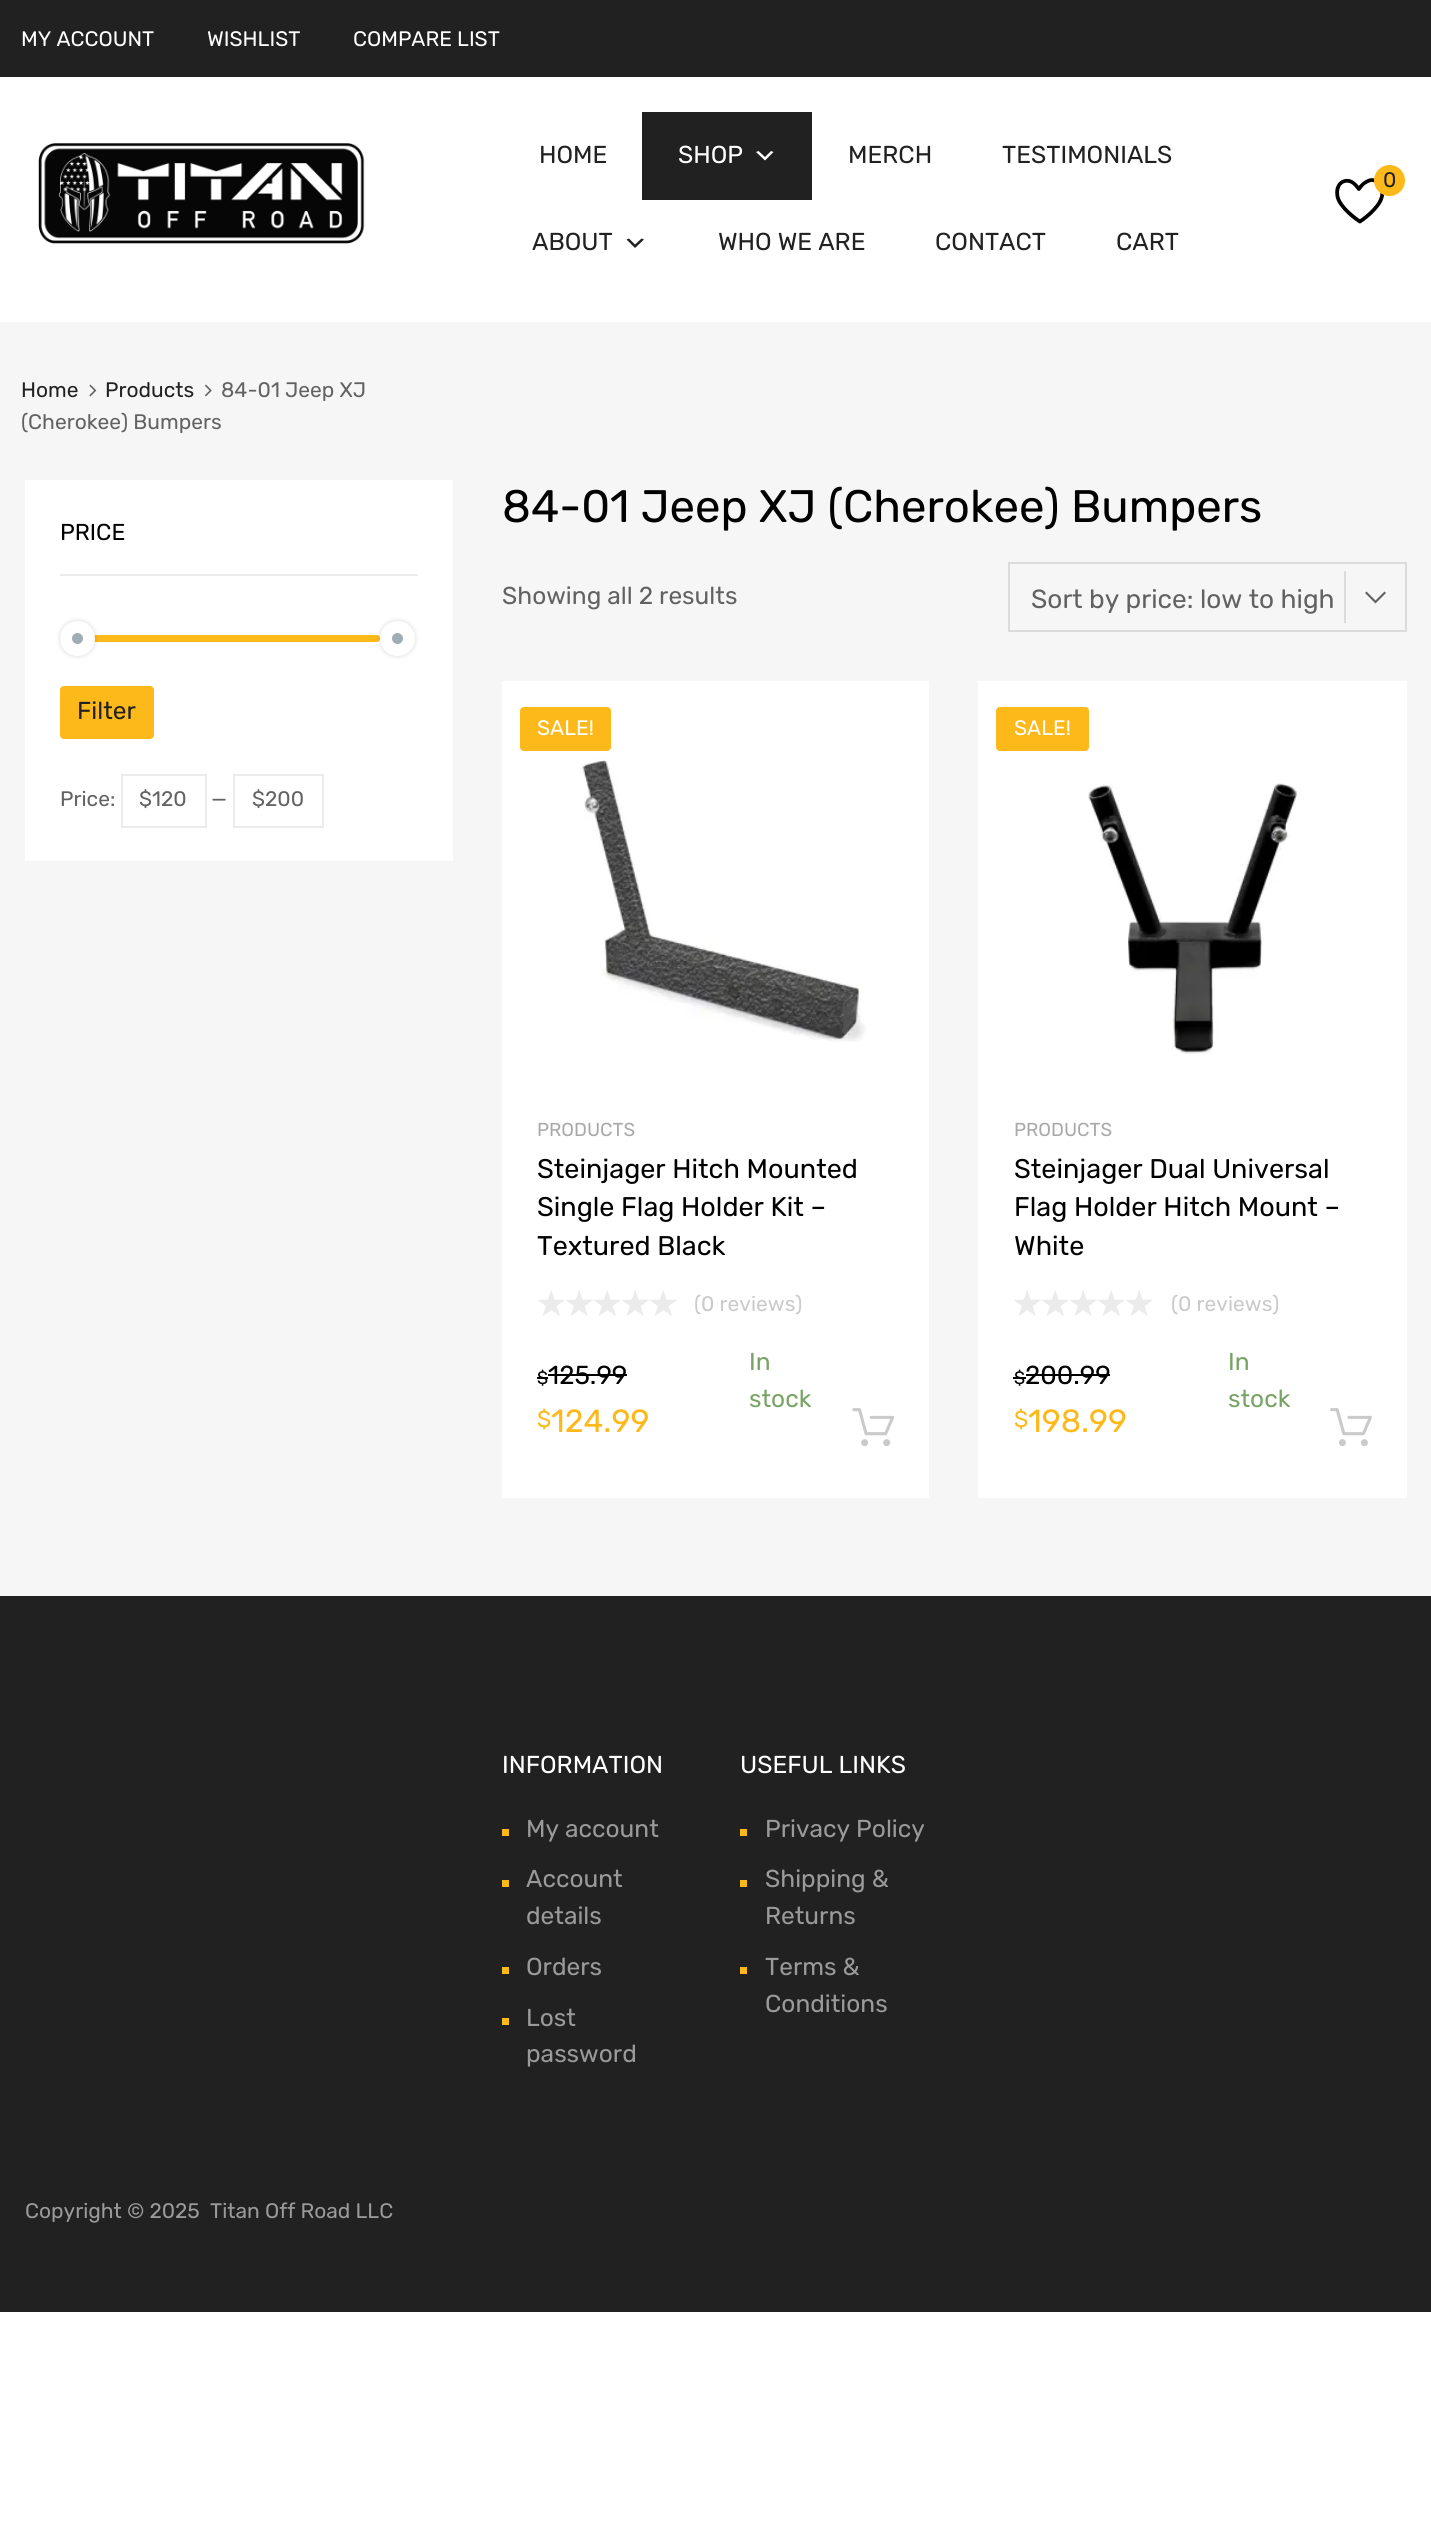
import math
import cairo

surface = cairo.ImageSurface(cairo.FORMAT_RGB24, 1431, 2530)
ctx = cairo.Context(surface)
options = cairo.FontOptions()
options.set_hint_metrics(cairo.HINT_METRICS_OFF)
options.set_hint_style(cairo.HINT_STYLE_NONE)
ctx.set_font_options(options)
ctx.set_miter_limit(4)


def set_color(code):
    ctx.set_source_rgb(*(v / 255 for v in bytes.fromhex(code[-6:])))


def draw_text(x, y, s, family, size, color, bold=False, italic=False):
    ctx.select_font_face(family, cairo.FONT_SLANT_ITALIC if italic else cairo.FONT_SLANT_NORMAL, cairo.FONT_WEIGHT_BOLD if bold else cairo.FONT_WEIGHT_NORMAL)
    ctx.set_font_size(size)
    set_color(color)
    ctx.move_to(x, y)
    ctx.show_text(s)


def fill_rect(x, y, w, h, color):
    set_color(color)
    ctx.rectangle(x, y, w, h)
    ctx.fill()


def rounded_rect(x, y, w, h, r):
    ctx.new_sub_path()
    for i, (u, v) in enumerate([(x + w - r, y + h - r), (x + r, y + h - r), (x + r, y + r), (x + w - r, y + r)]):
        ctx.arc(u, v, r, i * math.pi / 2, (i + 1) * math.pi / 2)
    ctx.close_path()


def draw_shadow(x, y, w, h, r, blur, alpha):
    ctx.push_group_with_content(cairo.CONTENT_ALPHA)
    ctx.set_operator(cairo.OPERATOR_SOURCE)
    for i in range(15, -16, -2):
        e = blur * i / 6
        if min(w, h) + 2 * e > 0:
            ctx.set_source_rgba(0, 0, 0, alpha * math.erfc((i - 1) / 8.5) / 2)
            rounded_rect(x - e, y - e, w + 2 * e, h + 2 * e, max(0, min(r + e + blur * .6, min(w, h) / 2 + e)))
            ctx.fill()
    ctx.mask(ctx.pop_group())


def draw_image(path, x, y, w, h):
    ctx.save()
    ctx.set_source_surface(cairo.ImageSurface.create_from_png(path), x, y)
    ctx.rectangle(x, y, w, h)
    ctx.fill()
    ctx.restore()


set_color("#ffffff")
ctx.paint()
fill_rect(0, 322, 1431, 1274, "#f6f6f6")
fill_rect(0, 0, 1431, 77, "#212121")
draw_text(21, 46, "MY ACCOUNT", "Rubik Light", 21, "#ffffff")
draw_text(207, 46, "WISHLIST", "Rubik Light", 21, "#ffffff")
draw_text(353, 46, "COMPARE LIST", "Rubik Light", 21, "#ffffff")
draw_image("assets/img1.png", 38, 143, 327, 101)
draw_text(539, 163, "HOME", "Rubik Light", 24.5, "#212121")
fill_rect(642, 112, 170, 88, "#212121")
draw_text(678, 163, "SHOP", "Rubik Light", 24.5, "#ffffff")
ctx.new_path()
ctx.move_to(758.5, 151)
ctx.line_to(765, 157)
ctx.line_to(771, 151)
ctx.line_to(773.5, 152)
ctx.line_to(765, 160.5)
ctx.line_to(756, 152)
ctx.close_path()
ctx.fill()
draw_text(848, 163, "MERCH", "Rubik Light", 24.5, "#212121")
draw_text(1002, 163, "TESTIMONIALS", "Rubik Light", 24.5, "#212121")
draw_text(532, 250, "ABOUT", "Rubik Light", 24.5, "#212121")
ctx.new_path()
ctx.move_to(629, 238.5)
ctx.line_to(635, 244.5)
ctx.line_to(641.5, 238.5)
ctx.line_to(644, 239.5)
ctx.line_to(635, 248)
ctx.line_to(626.5, 239.5)
ctx.close_path()
ctx.fill()
draw_text(718, 250, "WHO WE ARE", "Rubik Light", 24.5, "#212121")
draw_text(935, 250, "CONTACT", "Rubik Light", 24.5, "#212121")
draw_text(1116, 250, "CART", "Rubik Light", 24.5, "#212121")
draw_image("assets/img2.png", 1335, 178, 49, 46)
set_color("#fdb819")
ctx.arc(1389.5, 180.5, 15.5, 0, 2 * math.pi)
ctx.fill()
draw_text(1383, 187, "0", "Rubik Light", 21, "#212121")
draw_text(21, 397, "Home", "Rubik Light", 21, "#212121")
draw_image("assets/img3.png", 89, 384, 8, 13)
draw_text(105, 397, "Products", "Rubik Light", 21, "#212121")
draw_image("assets/img4.png", 205, 384, 7, 13)
draw_text(221, 397, "84-01 Jeep XJ", "Rubik Light", 21, "#626262")
draw_text(21, 429, "(Cherokee) Bumpers", "Rubik Light", 21, "#626262")
fill_rect(25, 480, 428, 381, "#ffffff")
fill_rect(60, 574, 358, 2, "#ebebeb")
draw_text(60, 540, "PRICE", "Rubik Light", 23, "#000000")
fill_rect(60, 635, 320, 7, "#f6f6f6")
set_color("#fdb819")
rounded_rect(60, 635, 320, 7, 3.5)
ctx.fill()
set_color("#000000")
draw_shadow(60, 621, 35, 35, 17.5, 2.5, 0.15)
set_color("#9eadb6")
ctx.arc(77.5, 638.5, 11.5, 0, 2 * math.pi)
ctx.fill_preserve()
set_color("#ffffff")
ctx.set_line_width(12)
ctx.stroke()
set_color("#000000")
draw_shadow(380, 621, 35, 35, 17.5, 2.5, 0.15)
set_color("#9eadb6")
ctx.arc(397.5, 638.5, 11.5, 0, 2 * math.pi)
ctx.fill_preserve()
set_color("#ffffff")
ctx.stroke()
set_color("#fdb819")
rounded_rect(60, 686, 94, 53, 4)
ctx.fill()
draw_text(77, 719, "Filter", "Rubik Light", 24.5, "#212121")
draw_text(60, 806, "Price:", "Rubik Light", 21, "#626262")
ctx.rectangle(122, 775, 84, 52)
set_color("#ebebeb")
ctx.set_line_width(2)
ctx.stroke()
draw_text(139, 806, "$120", "Rubik Light", 21, "#626262")
draw_text(211, 806, "—", "Rubik Light", 21, "#626262")
ctx.rectangle(234, 775, 89, 52)
set_color("#ebebeb")
ctx.stroke()
draw_text(252, 806, "$200", "Rubik Light", 21, "#626262")
draw_text(502, 522, "84-01 Jeep XJ (Cherokee) Bumpers", "Rubik Light", 45.5, "#000000")
draw_text(502, 604, "Showing all 2 results", "Rubik Light", 24.5, "#626262")
fill_rect(1344, 571, 2, 52, "#dbdbdb")
set_color("#626262")
ctx.new_path()
ctx.move_to(1365, 593)
ctx.line_to(1375.5, 603.5)
ctx.line_to(1386, 593)
ctx.line_to(1384.5, 591.5)
ctx.line_to(1375.5, 600.5)
ctx.line_to(1366.5, 591.5)
ctx.close_path()
ctx.fill()
ctx.rectangle(1009, 563, 397, 68)
set_color("#dbdbdb")
ctx.stroke()
draw_text(1031, 608, "Sort by price: low to high", "Rubik Light", 26.25, "#626262")
fill_rect(502, 681, 427, 817, "#ffffff")
set_color("#fdb819")
rounded_rect(520, 707, 91, 44, 4)
ctx.fill()
draw_text(537, 735, "SALE!", "Rubik Light", 21, "#ffffff")
draw_image("assets/img5.png", 580, 759, 286, 283)
draw_text(537, 1136, "PRODUCTS", "Rubik Light", 18.75, "#a9a9a9")
draw_text(537, 1178, "Steinjager Hitch Mounted", "Rubik Light", 27, "#000000")
draw_text(537, 1216, "Single Flag Holder Kit –", "Rubik Light", 27, "#000000")
draw_text(537, 1255, "Textured Black", "Rubik Light", 27, "#000000")
draw_image("assets/img6.png", 538, 1290, 139, 26)
draw_text(694, 1311, "(0 reviews)", "Rubik Light", 21, "#cacaca")
draw_text(537, 1384, "$", "Rubik Light", 18, "#000000")
fill_rect(537, 1377, 11, 2, "#000000")
draw_text(548, 1384, "125.99", "Rubik Light", 26, "#000000")
fill_rect(548, 1374, 79, 2, "#000000")
draw_text(537, 1427, "$", "Rubik Light", 23, "#fdb819")
draw_text(551, 1432, "124.99", "Rubik Light", 32, "#fdb819")
draw_text(749, 1370, "In", "Rubik Light", 24.5, "#77a464")
draw_text(749, 1407, "stock", "Rubik Light", 24.5, "#77a464")
draw_image("assets/img7.png", 852, 1408, 42, 39)
fill_rect(978, 681, 429, 817, "#ffffff")
set_color("#fdb819")
rounded_rect(996, 707, 93, 44, 4)
ctx.fill()
draw_text(1014, 735, "SALE!", "Rubik Light", 21, "#ffffff")
draw_image("assets/img8.png", 1088, 782, 212, 273)
draw_text(1014, 1136, "PRODUCTS", "Rubik Light", 18.75, "#a9a9a9")
draw_text(1014, 1178, "Steinjager Dual Universal", "Rubik Light", 27, "#000000")
draw_text(1014, 1216, "Flag Holder Hitch Mount –", "Rubik Light", 27, "#000000")
draw_text(1014, 1255, "White", "Rubik Light", 27, "#000000")
draw_image("assets/img6.png", 1014, 1290, 139, 26)
draw_text(1171, 1311, "(0 reviews)", "Rubik Light", 21, "#cacaca")
draw_text(1014, 1384, "$", "Rubik Light", 18, "#000000")
fill_rect(1013, 1377, 13, 2, "#000000")
draw_text(1025, 1384, "200.99", "Rubik Light", 26, "#000000")
fill_rect(1026, 1374, 84, 2, "#000000")
draw_text(1014, 1427, "$", "Rubik Light", 23, "#fdb819")
draw_text(1028, 1432, "198.99", "Rubik Light", 32, "#fdb819")
draw_text(1228, 1370, "In", "Rubik Light", 24.5, "#77a464")
draw_text(1228, 1407, "stock", "Rubik Light", 24.5, "#77a464")
draw_image("assets/img9.png", 1330, 1408, 42, 39)
fill_rect(0, 1596, 1431, 716, "#212121")
draw_text(502, 1773, "INFORMATION", "Rubik Light", 24.5, "#ffffff")
fill_rect(502, 1829, 7, 7, "#fdb819")
draw_text(526, 1837, "My account", "Rubik Light", 24.5, "#9a9a9a")
fill_rect(502, 1880, 7, 7, "#fdb819")
draw_text(526, 1887, "Account", "Rubik Light", 24.5, "#9a9a9a")
draw_text(526, 1924, "details", "Rubik Light", 24.5, "#9a9a9a")
fill_rect(502, 1967, 7, 7, "#fdb819")
draw_text(526, 1975, "Orders", "Rubik Light", 24.5, "#9a9a9a")
fill_rect(502, 2018, 7, 7, "#fdb819")
draw_text(526, 2026, "Lost", "Rubik Light", 24.5, "#9a9a9a")
draw_text(526, 2062, "password", "Rubik Light", 24.5, "#9a9a9a")
draw_text(740, 1773, "USEFUL LINKS", "Rubik Light", 24.5, "#ffffff")
fill_rect(740, 1829, 7, 7, "#fdb819")
draw_text(765, 1837, "Privacy Policy", "Rubik Light", 24.5, "#9a9a9a")
fill_rect(740, 1880, 7, 7, "#fdb819")
draw_text(765, 1887, "Shipping &", "Rubik Light", 24.5, "#9a9a9a")
draw_text(765, 1924, "Returns", "Rubik Light", 24.5, "#9a9a9a")
fill_rect(740, 1967, 7, 7, "#fdb819")
draw_text(765, 1975, "Terms &", "Rubik Light", 24.5, "#9a9a9a")
draw_text(765, 2012, "Conditions", "Rubik Light", 24.5, "#9a9a9a")
draw_text(25, 2218, "Copyright © 2025", "Rubik Light", 21, "#9a9a9a")
draw_text(210, 2218, "Titan Off Road LLC", "Rubik Light", 21, "#9a9a9a")
surface.write_to_png("output.png")
